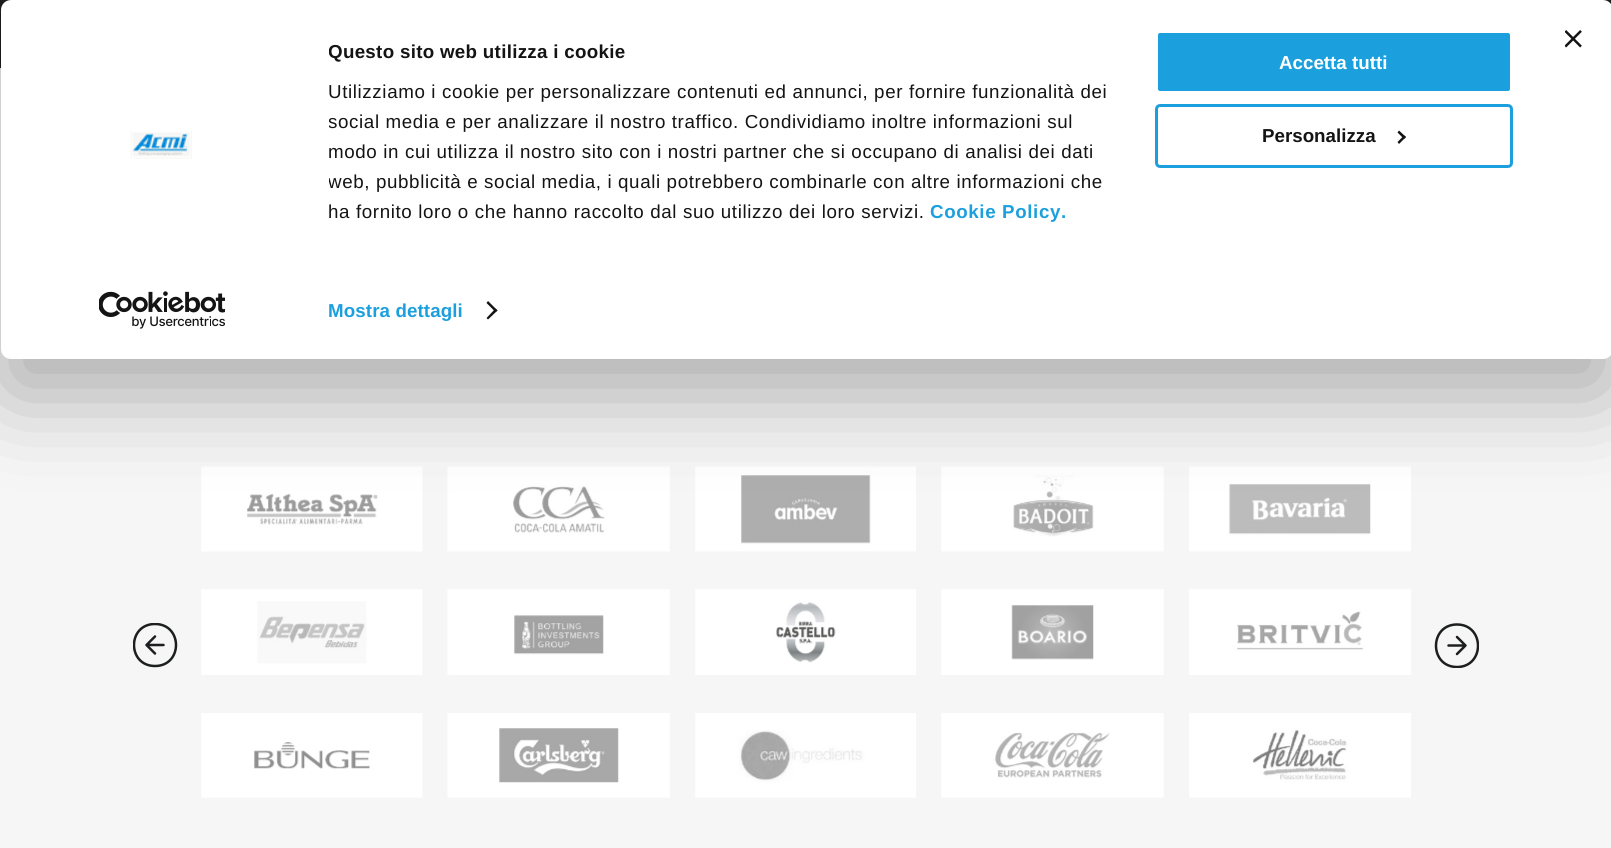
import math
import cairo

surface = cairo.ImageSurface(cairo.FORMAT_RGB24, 1611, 848)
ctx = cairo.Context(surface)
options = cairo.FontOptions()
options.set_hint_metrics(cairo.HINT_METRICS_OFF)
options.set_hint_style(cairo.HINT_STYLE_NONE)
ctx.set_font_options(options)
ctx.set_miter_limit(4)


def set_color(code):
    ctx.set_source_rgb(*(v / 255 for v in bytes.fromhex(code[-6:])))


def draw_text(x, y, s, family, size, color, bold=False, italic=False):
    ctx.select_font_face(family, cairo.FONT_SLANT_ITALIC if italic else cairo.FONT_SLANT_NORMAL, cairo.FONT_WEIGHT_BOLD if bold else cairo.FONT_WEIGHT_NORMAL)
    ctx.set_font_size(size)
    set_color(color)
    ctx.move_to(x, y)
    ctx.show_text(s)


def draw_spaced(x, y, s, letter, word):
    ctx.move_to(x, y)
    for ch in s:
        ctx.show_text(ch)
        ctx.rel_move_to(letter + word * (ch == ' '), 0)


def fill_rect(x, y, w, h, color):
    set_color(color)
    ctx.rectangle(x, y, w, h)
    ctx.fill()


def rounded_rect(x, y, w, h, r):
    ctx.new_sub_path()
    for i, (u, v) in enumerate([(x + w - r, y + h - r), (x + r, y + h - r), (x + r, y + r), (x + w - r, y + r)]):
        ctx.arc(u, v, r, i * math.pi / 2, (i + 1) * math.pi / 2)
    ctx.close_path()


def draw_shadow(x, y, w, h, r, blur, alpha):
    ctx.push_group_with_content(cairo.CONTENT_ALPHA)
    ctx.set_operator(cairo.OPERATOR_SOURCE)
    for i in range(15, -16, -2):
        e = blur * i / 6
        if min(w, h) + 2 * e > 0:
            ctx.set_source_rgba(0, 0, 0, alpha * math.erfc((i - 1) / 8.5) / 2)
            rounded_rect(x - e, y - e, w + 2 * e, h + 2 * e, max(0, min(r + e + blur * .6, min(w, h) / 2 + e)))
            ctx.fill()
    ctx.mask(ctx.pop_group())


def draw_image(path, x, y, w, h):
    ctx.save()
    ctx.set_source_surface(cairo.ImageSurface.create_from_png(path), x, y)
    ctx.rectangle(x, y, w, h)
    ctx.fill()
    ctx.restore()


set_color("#f5f6f5")
ctx.paint()
fill_rect(0, 0, 1611, 68, "#1d1c1f")
ctx.save()
ctx.rectangle(133, 623, 45, 45)
ctx.clip()
ctx.new_path()
ctx.move_to(155, 636.5)
ctx.line_to(146.5, 645)
ctx.move_to(146.5, 645)
ctx.line_to(155, 653.5)
ctx.move_to(146.5, 645)
ctx.line_to(163.5, 645)
ctx.move_to(155, 666)
ctx.curve_to(127, 666, 127, 624, 155, 624)
ctx.curve_to(183, 624, 183, 666, 155, 666)
ctx.close_path()
set_color("#1c1e1f")
ctx.set_line_width(2.5)
ctx.set_line_cap(cairo.LINE_CAP_ROUND)
ctx.set_line_join(cairo.LINE_JOIN_ROUND)
ctx.stroke()
ctx.restore()
draw_image("assets/img1.png", 201, 466, 222, 86)
draw_image("assets/img2.png", 447, 466, 223, 86)
draw_image("assets/img3.png", 695, 466, 221, 86)
draw_image("assets/img4.png", 941, 466, 223, 86)
draw_image("assets/img5.png", 1189, 466, 222, 86)
draw_image("assets/img6.png", 201, 589, 222, 86)
draw_image("assets/img7.png", 447, 589, 223, 86)
draw_image("assets/img8.png", 695, 589, 221, 86)
draw_image("assets/img9.png", 941, 589, 223, 86)
draw_image("assets/img10.png", 1189, 589, 222, 86)
draw_image("assets/img11.png", 201, 713, 222, 85)
draw_image("assets/img12.png", 447, 713, 223, 85)
draw_image("assets/img13.png", 695, 713, 221, 85)
draw_image("assets/img14.png", 941, 713, 223, 85)
draw_image("assets/img15.png", 1189, 713, 222, 85)
ctx.save()
ctx.rectangle(1434, 623, 45, 45)
ctx.clip()
ctx.new_path()
ctx.move_to(1457, 654)
ctx.line_to(1465.5, 645.5)
ctx.move_to(1465.5, 645.5)
ctx.line_to(1457, 637)
ctx.move_to(1465.5, 645.5)
ctx.line_to(1448.5, 645.5)
ctx.move_to(1457, 624.5)
ctx.curve_to(1485, 624.5, 1485, 667, 1457, 667)
ctx.curve_to(1429, 667, 1429, 624.5, 1457, 624.5)
ctx.close_path()
set_color("#1c1e1f")
ctx.set_line_width(2.5)
ctx.set_line_cap(cairo.LINE_CAP_ROUND)
ctx.set_line_join(cairo.LINE_JOIN_ROUND)
ctx.stroke()
ctx.restore()
set_color("#000000")
draw_shadow(1, 38, 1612, 358, 10, 44, 0.3)
set_color("#ffffff")
rounded_rect(1, 0, 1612, 359, 10)
ctx.fill()
draw_image("assets/img16.png", 1565, 30, 17, 18)
ctx.save()
ctx.rectangle(329, 38, 819, 218)
ctx.clip()
ctx.select_font_face("Liberation Sans", cairo.FONT_SLANT_NORMAL, cairo.FONT_WEIGHT_BOLD)
ctx.set_font_size(18.75)
set_color("#141414")
draw_spaced(328, 58, "Questo sito web utilizza i cookie", 0.3, 0)
ctx.restore()
ctx.select_font_face("Liberation Sans")
ctx.set_font_size(18.75)
set_color("#141414")
draw_spaced(328, 98, "Utilizziamo i cookie per personalizzare contenuti ed annunci, per fornire funzionalità dei", 0.62, 0)
ctx.save()
ctx.rectangle(329, 38, 819, 218)
ctx.clip()
draw_spaced(328, 128, "social media e per analizzare il nostro traffico. Condividiamo inoltre informazioni sul", 0.62, 0)
ctx.restore()
draw_spaced(328, 158, "modo in cui utilizza il nostro sito con i nostri partner che si occupano di analisi dei dati", 0.62, 0)
ctx.save()
ctx.rectangle(329, 38, 819, 218)
ctx.clip()
draw_spaced(328, 188, "web, pubblicità e social media, i quali potrebbero combinarle con altre informazioni che", 0.62, 0)
ctx.restore()
draw_spaced(328, 218, "ha fornito loro o che hanno raccolto dal suo utilizzo dei loro servizi.", 0.62, 0)
ctx.select_font_face("Liberation Sans", cairo.FONT_SLANT_NORMAL, cairo.FONT_WEIGHT_BOLD)
set_color("#1ca0dd")
draw_spaced(930, 218, "Cookie Policy.", 0.62, 0)
draw_spaced(328, 317, "Mostra dettagli", 0.1, 0)
set_color("#141414")
ctx.new_path()
ctx.move_to(488, 301)
ctx.line_to(497.5, 310.5)
ctx.line_to(495.5, 312)
ctx.line_to(486.5, 303)
ctx.close_path()
ctx.fill()
ctx.new_path()
ctx.move_to(495.5, 308.5)
ctx.line_to(497.5, 310.5)
ctx.line_to(488, 319.5)
ctx.line_to(486.5, 318)
ctx.close_path()
ctx.fill()
set_color("#1ca0dd")
rounded_rect(1156.5, 31.5, 355, 61, 3.5)
ctx.fill_preserve()
set_color("#ffffff")
ctx.set_line_width(3)
ctx.stroke()
draw_text(1279, 69, "Accetta tutti", "Liberation Sans", 18.75, "#ffffff", bold=True)
rounded_rect(1156.5, 105.5, 355, 61, 3.5)
set_color("#1ca0dd")
ctx.stroke()
draw_text(1262, 142, "Personalizza", "Liberation Sans", 18.75, "#141414", bold=True)
ctx.new_path()
ctx.move_to(1399, 130.5)
ctx.line_to(1406, 137)
ctx.line_to(1404, 139)
ctx.line_to(1397.5, 132.5)
ctx.close_path()
ctx.fill()
ctx.new_path()
ctx.move_to(1404, 135.5)
ctx.line_to(1406, 137)
ctx.line_to(1399, 144)
ctx.line_to(1397.5, 142)
ctx.close_path()
ctx.fill()
draw_image("assets/img17.png", 130, 131, 62, 28)
draw_image("assets/img18.png", 99, 291, 126, 38)
surface.write_to_png("output.png")
